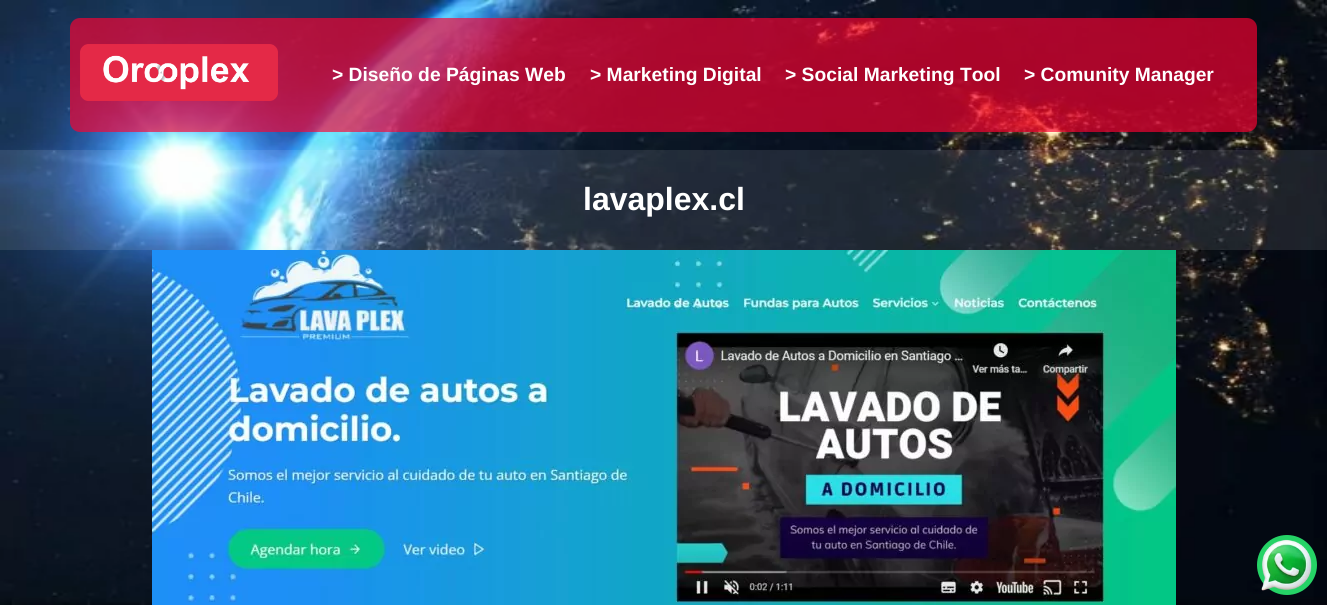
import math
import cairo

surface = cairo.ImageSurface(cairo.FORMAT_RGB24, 1327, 605)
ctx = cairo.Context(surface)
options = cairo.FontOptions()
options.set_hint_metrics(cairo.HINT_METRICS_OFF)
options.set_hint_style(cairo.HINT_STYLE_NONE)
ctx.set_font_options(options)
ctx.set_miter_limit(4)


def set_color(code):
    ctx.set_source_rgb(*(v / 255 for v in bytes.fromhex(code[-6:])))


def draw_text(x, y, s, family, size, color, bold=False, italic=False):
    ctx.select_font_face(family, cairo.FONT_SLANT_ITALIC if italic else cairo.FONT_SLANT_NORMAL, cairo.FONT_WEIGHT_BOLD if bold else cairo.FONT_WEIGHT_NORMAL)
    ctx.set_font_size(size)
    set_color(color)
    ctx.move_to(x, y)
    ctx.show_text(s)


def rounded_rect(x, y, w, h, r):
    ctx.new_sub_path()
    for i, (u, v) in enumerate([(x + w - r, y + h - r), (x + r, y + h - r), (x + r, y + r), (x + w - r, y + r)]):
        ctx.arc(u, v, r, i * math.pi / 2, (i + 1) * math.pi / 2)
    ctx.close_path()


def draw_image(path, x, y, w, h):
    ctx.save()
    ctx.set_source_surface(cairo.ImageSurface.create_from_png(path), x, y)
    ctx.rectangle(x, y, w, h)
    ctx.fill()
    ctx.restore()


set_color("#ffffff")
ctx.paint()
draw_image("assets/img1.png", 0, 0, 1327, 605)
ctx.set_source_rgba(1, 0, 0.192, 0.66)
rounded_rect(70, 18, 1187, 114, 10)
ctx.fill()
draw_image("assets/img2.png", 80, 44, 198, 57)
draw_text(332, 81, "> Diseño de Páginas Web", "Liberation Sans", 19.25, "#ffffff", bold=True)
draw_text(590, 81, "> Marketing Digital", "Liberation Sans", 19.25, "#ffffff", bold=True)
draw_text(785, 81, "> Social Marketing Tool", "Liberation Sans", 19.25, "#ffffff", bold=True)
draw_text(1024, 81, "> Comunity Manager", "Liberation Sans", 19.25, "#ffffff", bold=True)
ctx.set_source_rgba(1, 1, 1, 0.1)
ctx.rectangle(0, 150, 1327, 100)
ctx.fill()
draw_text(583, 210, "lavaplex.cl", "Liberation Sans", 32, "#ffffff", bold=True)
draw_image("assets/img3.png", 152, 250, 1024, 355)
set_color("#25d366")
ctx.arc(1287, 565, 30, 0, 2 * math.pi)
ctx.fill()
draw_image("assets/img4.png", 1261, 539, 51, 52)
surface.write_to_png("output.png")
